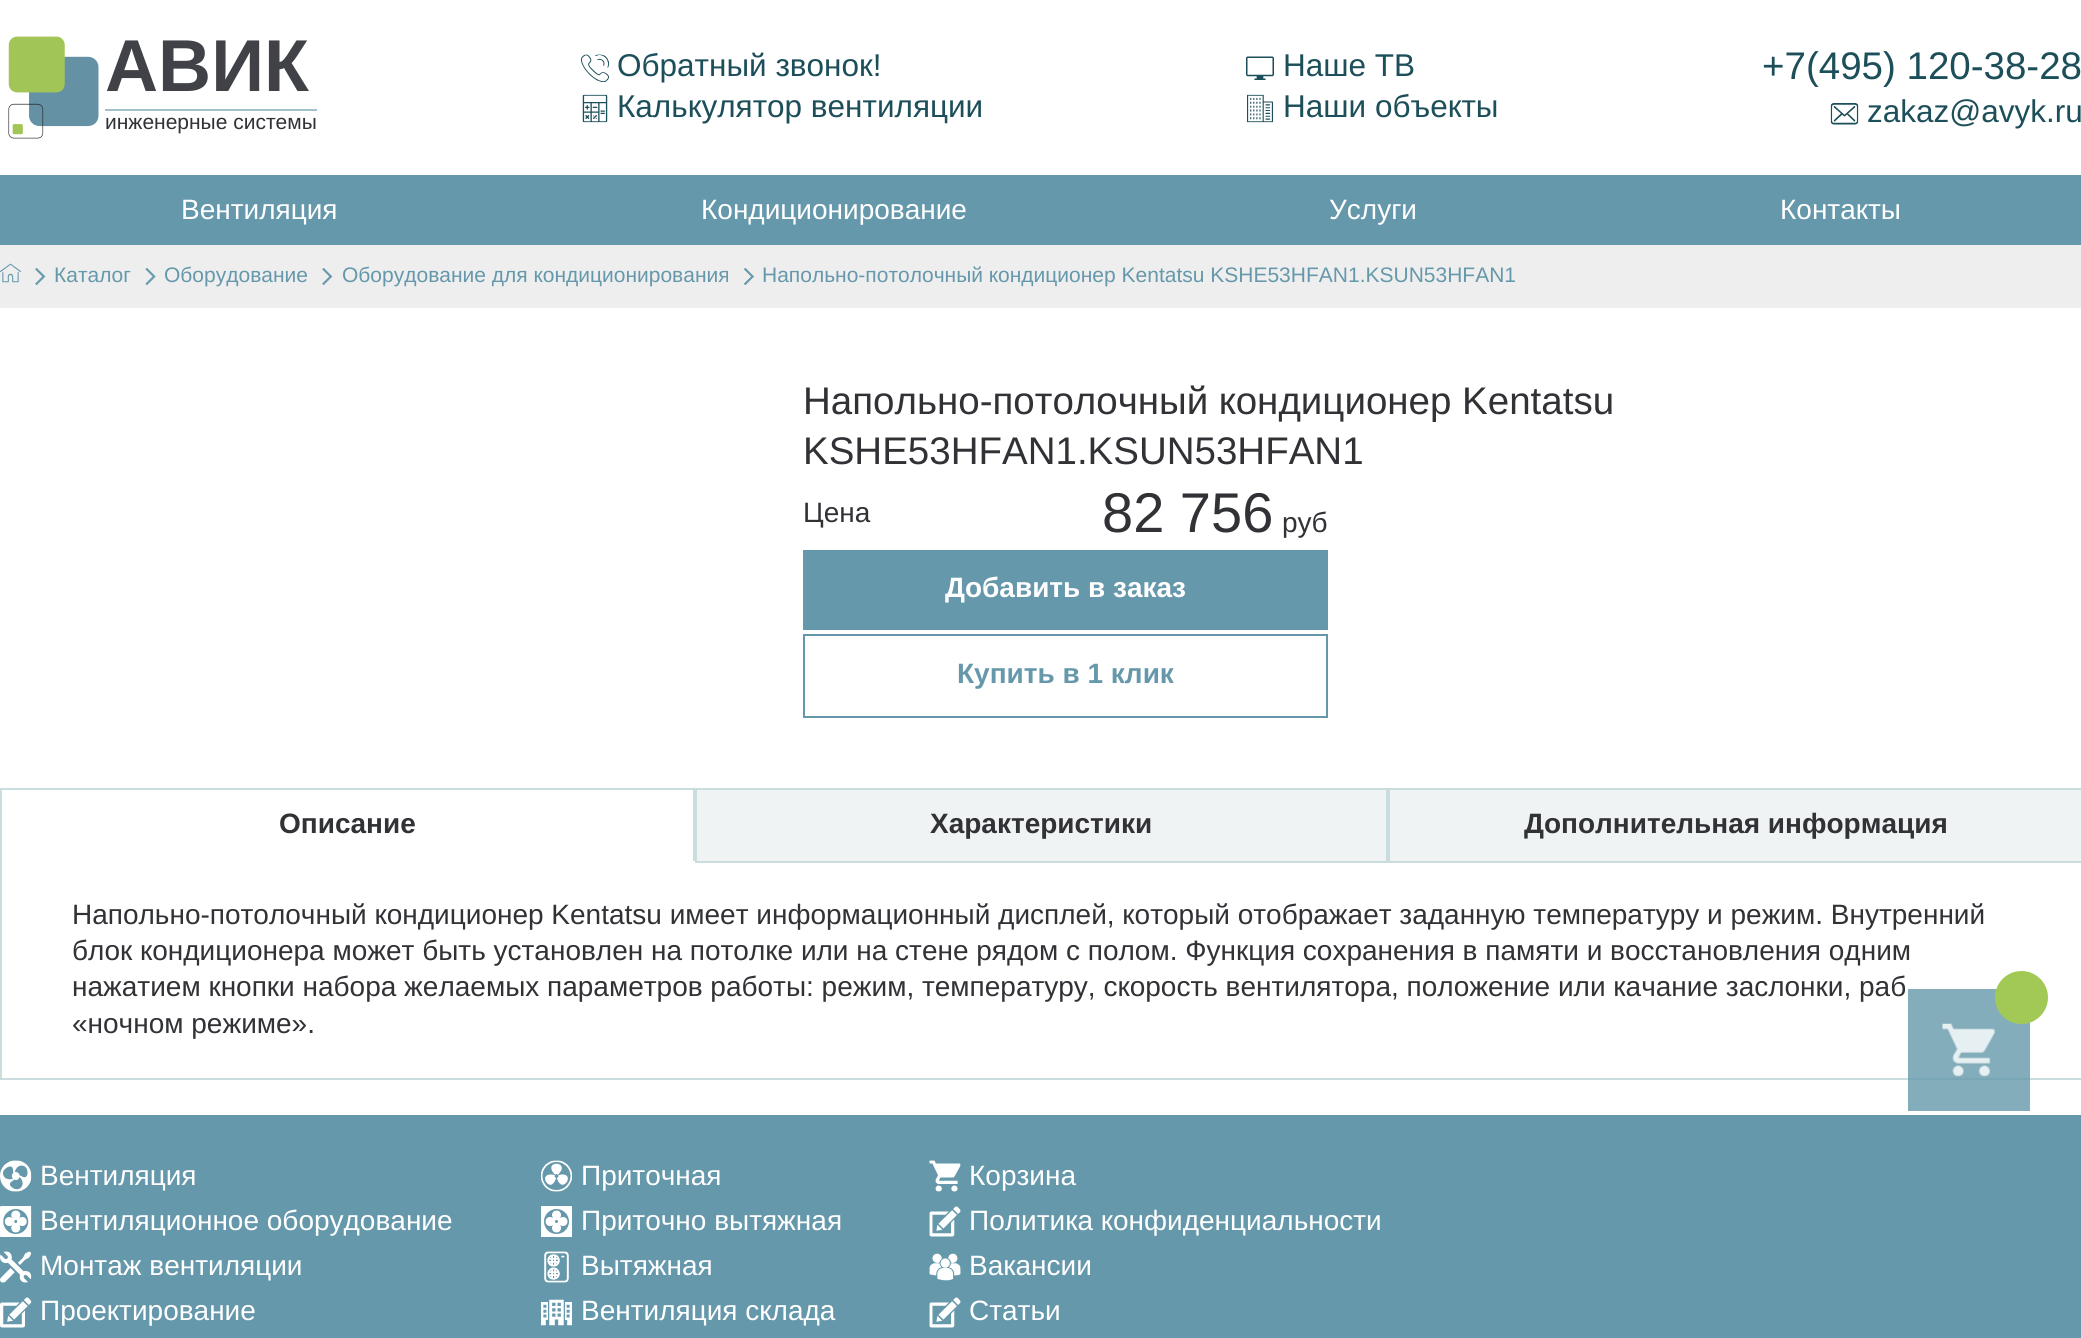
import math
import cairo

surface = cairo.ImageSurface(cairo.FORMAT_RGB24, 2081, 1338)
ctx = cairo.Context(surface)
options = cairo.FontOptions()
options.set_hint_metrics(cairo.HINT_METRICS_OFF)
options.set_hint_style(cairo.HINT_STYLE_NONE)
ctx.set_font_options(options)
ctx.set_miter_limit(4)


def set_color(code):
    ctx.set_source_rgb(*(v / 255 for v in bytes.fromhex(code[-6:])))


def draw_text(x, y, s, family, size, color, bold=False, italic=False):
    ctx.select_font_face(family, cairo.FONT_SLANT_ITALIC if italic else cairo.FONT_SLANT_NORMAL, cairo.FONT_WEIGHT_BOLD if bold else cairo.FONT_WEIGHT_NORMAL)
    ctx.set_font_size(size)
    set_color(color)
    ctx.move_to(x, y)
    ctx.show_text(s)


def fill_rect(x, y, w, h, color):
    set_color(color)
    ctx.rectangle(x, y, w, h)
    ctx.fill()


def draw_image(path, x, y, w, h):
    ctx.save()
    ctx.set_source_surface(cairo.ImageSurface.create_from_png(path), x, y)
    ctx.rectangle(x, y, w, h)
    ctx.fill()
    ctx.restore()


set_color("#ffffff")
ctx.paint()
draw_image("assets/img1.png", 8, 36, 91, 103)
draw_text(105, 91, "АВИК", "Liberation Sans", 73.5, "#404247", bold=True)
fill_rect(105, 109, 212, 2, "#a3c1cd")
draw_text(105, 129, "инженерные системы", "Liberation Sans", 21, "#313236")
draw_image("assets/img2.png", 581, 54, 28, 28)
draw_text(617, 76, "Обратный звонок!", "Liberation Sans", 31.5, "#1d4f5a")
draw_image("assets/img3.png", 582, 94, 26, 29)
draw_text(617, 117, "Калькулятор вентиляции", "Liberation Sans", 31.5, "#1d4f5a")
draw_image("assets/img4.png", 1246, 56, 28, 24)
draw_text(1283, 76, "Наше ТВ", "Liberation Sans", 31.5, "#1d4f5a")
draw_image("assets/img5.png", 1247, 94, 26, 29)
draw_text(1283, 117, "Наши объекты", "Liberation Sans", 31.5, "#1d4f5a")
draw_text(1762, 79, "+7(495) 120-38-28", "Liberation Sans", 38.5, "#1d4f5a")
draw_image("assets/img6.png", 1830, 103, 29, 22)
draw_text(1867, 122, "zakaz@avyk.ru", "Liberation Sans", 31.5, "#1d4f5a")
fill_rect(0, 175, 2081, 70, "#6598ab")
draw_text(181, 219, "Вентиляция", "Liberation Sans", 28, "#ffffff")
draw_text(701, 219, "Кондиционирование", "Liberation Sans", 28, "#ffffff")
draw_text(1329, 219, "Услуги", "Liberation Sans", 28, "#ffffff")
draw_text(1780, 219, "Контакты", "Liberation Sans", 28, "#ffffff")
fill_rect(0, 245, 2081, 63, "#eeeeee")
draw_image("assets/img7.png", 0, 263, 21, 20)
draw_image("assets/img8.png", 35, 268, 11, 17)
draw_text(54, 282, "Каталог", "Liberation Sans", 21, "#6598ab")
draw_image("assets/img9.png", 145, 268, 11, 17)
draw_text(164, 282, "Оборудование", "Liberation Sans", 21, "#6598ab")
draw_image("assets/img8.png", 322, 268, 11, 17)
draw_text(342, 282, "Оборудование для кондиционирования", "Liberation Sans", 21, "#6598ab")
draw_image("assets/img10.png", 744, 268, 10, 17)
draw_text(762, 282, "Напольно-потолочный кондиционер Kentatsu KSHE53HFAN1.KSUN53HFAN1", "Liberation Sans", 21, "#6598ab")
draw_text(803, 414, "Напольно-потолочный кондиционер Kentatsu", "Liberation Sans", 38.5, "#313236")
draw_text(803, 464, "KSHE53HFAN1.KSUN53HFAN1", "Liberation Sans", 38.5, "#313236")
draw_text(803, 522, "Цена", "Liberation Sans", 28, "#313236")
draw_text(1102, 532, "82 756", "Liberation Sans", 56, "#313236")
draw_text(1282, 532, "руб", "Liberation Sans", 28, "#313236")
fill_rect(803, 550, 525, 80, "#6598ab")
draw_text(945, 597, "Добавить в заказ", "Liberation Sans", 28, "#ffffff", bold=True)
ctx.rectangle(804, 635, 523, 82)
set_color("#6598ab")
ctx.stroke()
draw_text(957, 683, "Купить в 1 клик", "Liberation Sans", 28, "#6598ab", bold=True)
fill_rect(0, 788, 695, 2, "#c9ddde")
fill_rect(693, 788, 2, 75, "#c9ddde")
fill_rect(693, 861, 2, 2, "#ffffff")
fill_rect(0, 788, 2, 75, "#c9ddde")
draw_text(279, 833, "Описание", "Liberation Sans", 28, "#313236", bold=True)
set_color("#eff3f4")
ctx.rectangle(696, 789, 691, 73)
ctx.fill_preserve()
set_color("#c9ddde")
ctx.stroke()
draw_text(930, 833, "Характеристики", "Liberation Sans", 28, "#313236", bold=True)
set_color("#eff3f4")
ctx.rectangle(1389, 789, 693, 73)
ctx.fill_preserve()
set_color("#c9ddde")
ctx.stroke()
draw_text(1524, 833, "Дополнительная информация", "Liberation Sans", 28, "#313236", bold=True)
fill_rect(0, 1078, 2081, 2, "#c9ddde")
fill_rect(0, 863, 2, 217, "#c9ddde")
draw_text(72, 924, "Напольно-потолочный кондиционер Kentatsu имеет информационный дисплей, который отображает заданную температуру и режим. Внутренний", "Liberation Sans", 28, "#313236")
draw_text(72, 960, "блок кондиционера может быть установлен на потолке или на стене рядом с полом. Функция сохранения в памяти и восстановления одним", "Liberation Sans", 28, "#313236")
draw_text(72, 996, "нажатием кнопки набора желаемых параметров работы: режим, температуру, скорость вентилятора, положение или качание заслонки, раб", "Liberation Sans", 28, "#313236")
draw_text(72, 1033, "«ночном режиме».", "Liberation Sans", 28, "#313236")
ctx.set_source_rgba(0.396, 0.596, 0.671, 0.8)
ctx.rectangle(1908, 989, 122, 122)
ctx.fill()
draw_image("assets/img11.png", 1942, 1023, 54, 54)
set_color("#a2c955")
ctx.arc(2021.5, 997.5, 26.5, 0, 2 * math.pi)
ctx.fill()
fill_rect(0, 1115, 2081, 223, "#6598ab")
draw_image("assets/img12.png", 0, 1160, 32, 32)
draw_text(40, 1185, "Вентиляция", "Liberation Sans", 28, "#ffffff")
draw_image("assets/img13.png", 0, 1206, 32, 31)
draw_text(40, 1230, "Вентиляционное оборудование", "Liberation Sans", 28, "#ffffff")
draw_image("assets/img14.png", 0, 1251, 32, 32)
draw_text(40, 1275, "Монтаж вентиляции", "Liberation Sans", 28, "#ffffff")
draw_image("assets/img15.png", 0, 1297, 32, 31)
draw_text(40, 1320, "Проектирование", "Liberation Sans", 28, "#ffffff")
draw_image("assets/img16.png", 541, 1160, 31, 32)
draw_text(581, 1185, "Приточная", "Liberation Sans", 28, "#ffffff")
draw_image("assets/img17.png", 541, 1206, 31, 31)
draw_text(581, 1230, "Приточно вытяжная", "Liberation Sans", 28, "#ffffff")
draw_image("assets/img18.png", 544, 1251, 25, 32)
draw_text(581, 1275, "Вытяжная", "Liberation Sans", 28, "#ffffff")
draw_image("assets/img19.png", 541, 1299, 31, 27)
draw_text(581, 1320, "Вентиляция склада", "Liberation Sans", 28, "#ffffff")
draw_image("assets/img20.png", 929, 1160, 32, 32)
draw_text(969, 1185, "Корзина", "Liberation Sans", 28, "#ffffff")
draw_image("assets/img21.png", 929, 1206, 32, 31)
draw_text(969, 1230, "Политика конфиденциальности", "Liberation Sans", 28, "#ffffff")
draw_image("assets/img22.png", 929, 1253, 32, 28)
draw_text(969, 1275, "Вакансии", "Liberation Sans", 28, "#ffffff")
draw_image("assets/img21.png", 929, 1297, 32, 31)
draw_text(969, 1320, "Статьи", "Liberation Sans", 28, "#ffffff")
surface.write_to_png("output.png")
